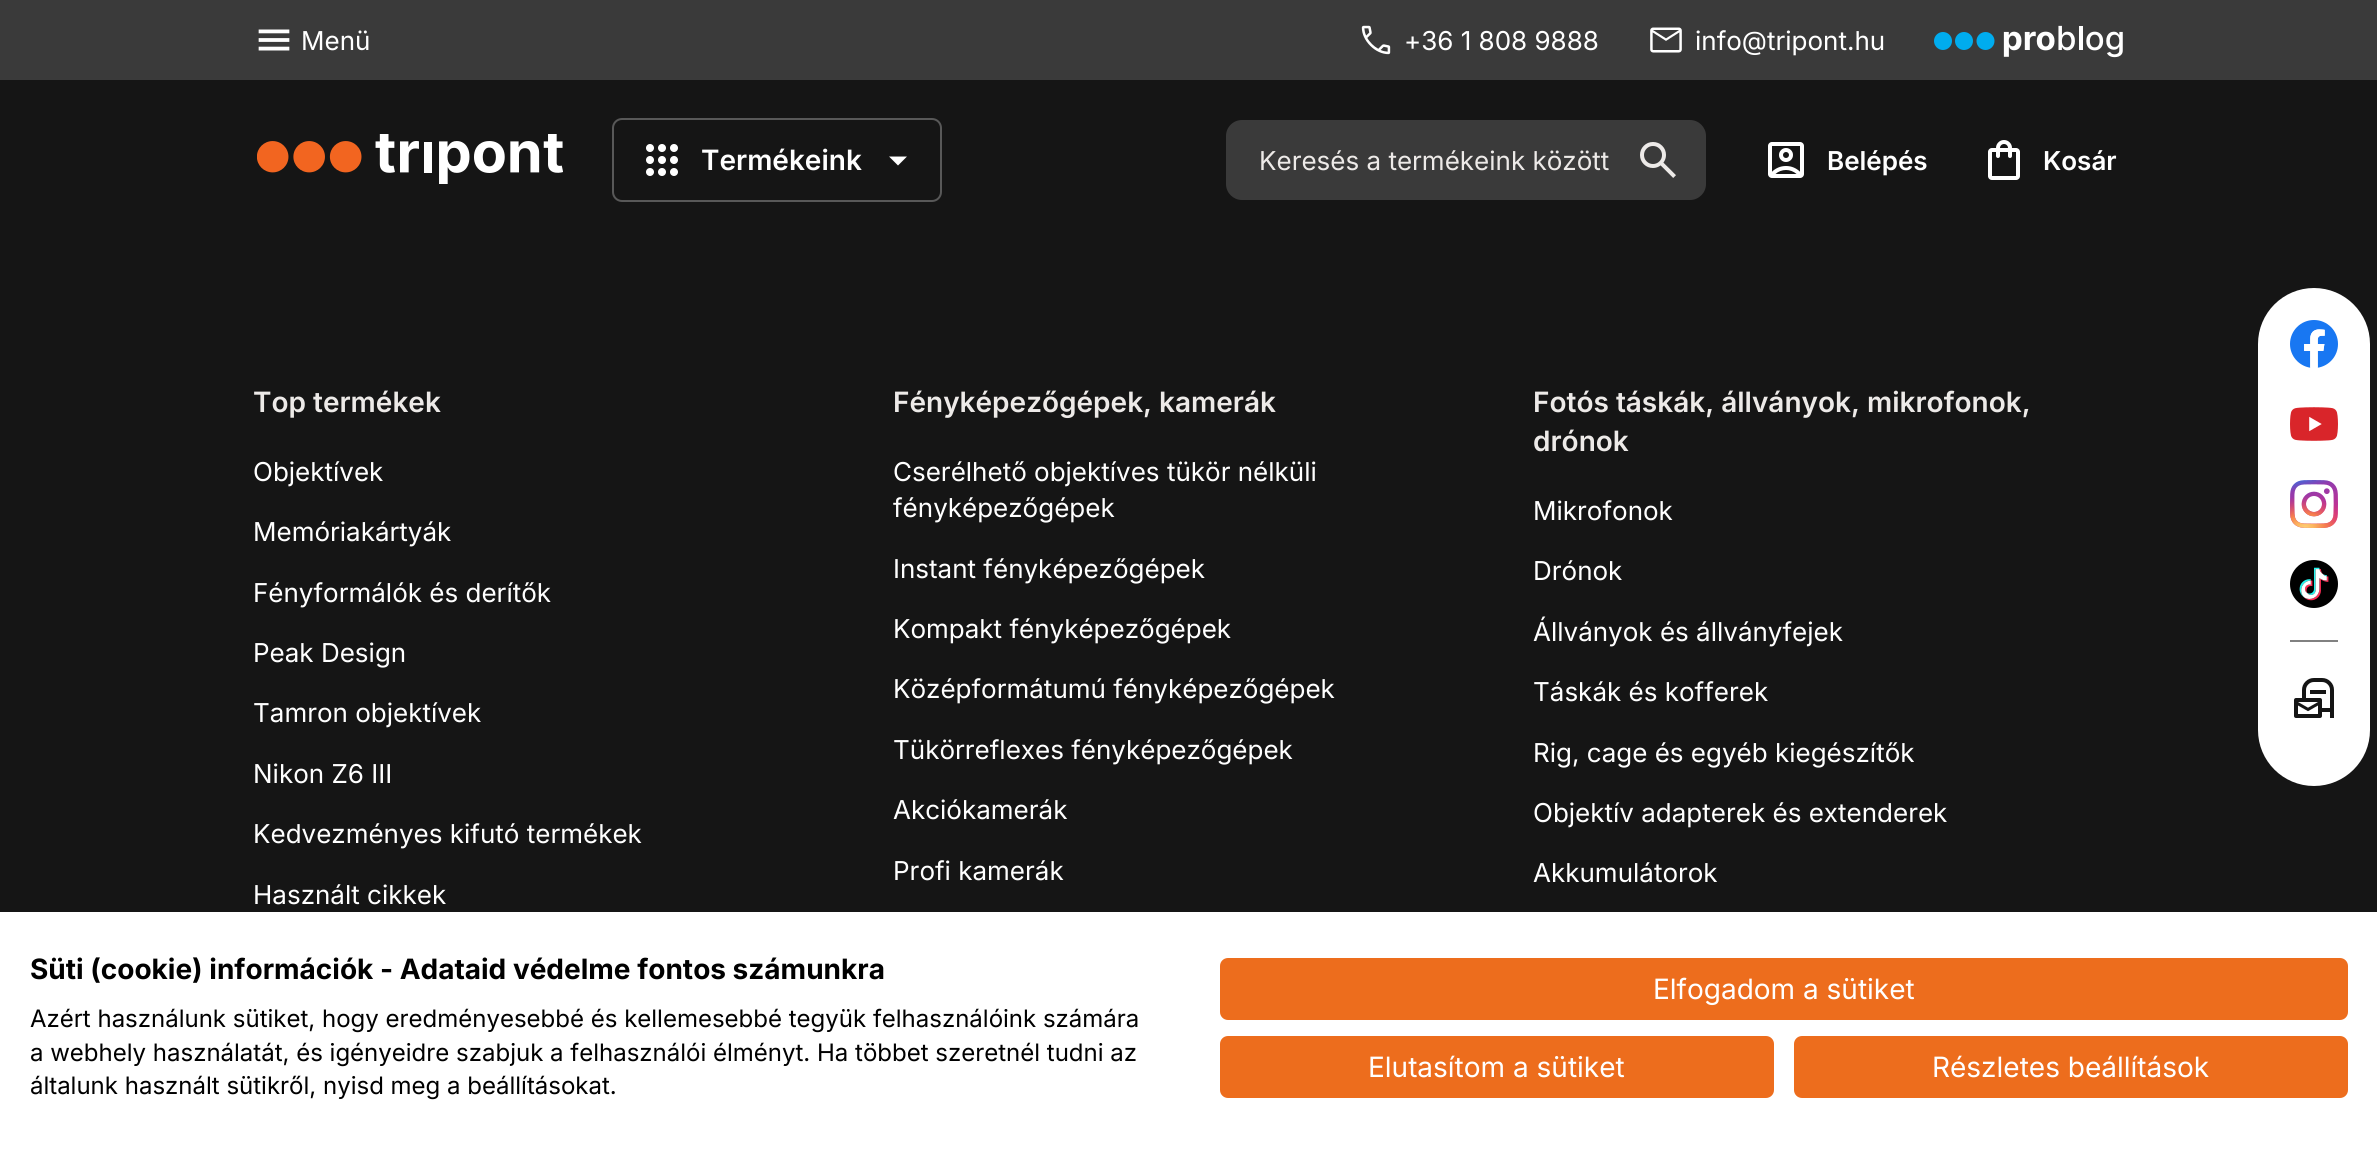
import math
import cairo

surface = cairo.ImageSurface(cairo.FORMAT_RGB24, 2377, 1157)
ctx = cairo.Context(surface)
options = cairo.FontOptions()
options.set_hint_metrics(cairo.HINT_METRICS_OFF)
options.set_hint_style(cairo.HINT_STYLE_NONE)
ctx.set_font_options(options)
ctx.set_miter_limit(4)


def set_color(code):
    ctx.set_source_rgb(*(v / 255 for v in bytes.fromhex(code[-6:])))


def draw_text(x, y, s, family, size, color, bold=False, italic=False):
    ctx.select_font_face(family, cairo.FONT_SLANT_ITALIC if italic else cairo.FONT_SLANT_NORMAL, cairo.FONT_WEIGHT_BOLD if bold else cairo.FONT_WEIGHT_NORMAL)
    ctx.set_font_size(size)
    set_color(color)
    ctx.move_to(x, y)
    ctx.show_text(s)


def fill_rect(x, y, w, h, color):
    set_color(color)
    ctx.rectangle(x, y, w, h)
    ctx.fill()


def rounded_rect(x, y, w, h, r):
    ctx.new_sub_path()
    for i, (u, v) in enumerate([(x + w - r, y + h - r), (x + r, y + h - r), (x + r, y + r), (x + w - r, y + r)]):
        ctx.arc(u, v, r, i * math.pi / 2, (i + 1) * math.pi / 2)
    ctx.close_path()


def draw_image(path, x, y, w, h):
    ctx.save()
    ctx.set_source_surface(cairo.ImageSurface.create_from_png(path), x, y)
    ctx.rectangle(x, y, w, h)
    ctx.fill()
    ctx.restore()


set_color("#151515")
ctx.paint()
fill_rect(0, 0, 2377, 80, "#3a3a3a")
draw_image("assets/img1.png", 258, 29, 32, 22)
draw_text(301, 50, "Menü", "Inter", 26, "#ffffff")
draw_image("assets/img2.png", 1361, 25, 30, 30)
draw_text(1404, 50, "+36 1 808 9888", "Inter", 26, "#ffffff")
draw_image("assets/img3.png", 1650, 27, 32, 26)
draw_text(1695, 50, "info@tripont.hu", "Inter", 26, "#ffffff")
draw_image("assets/img4.png", 1934, 25, 189, 33)
draw_image("assets/img5.png", 257, 134, 306, 50)
rounded_rect(613, 119, 328, 82, 9)
set_color("#585858")
ctx.stroke()
draw_image("assets/img6.png", 646, 144, 32, 32)
draw_text(701, 170, "Termékeink", "Inter SemiBold", 28, "#ffffff")
ctx.new_path()
ctx.move_to(898, 165.5)
ctx.line_to(889, 156.5)
ctx.line_to(907, 156.5)
ctx.close_path()
ctx.fill()
set_color("#3a3a3a")
rounded_rect(1226, 120, 480, 80, 16)
ctx.fill()
draw_text(1259, 170, "Keresés a termékeink között", "Inter", 26, "#edeae8")
draw_image("assets/img7.png", 1640, 142, 36, 36)
draw_image("assets/img8.png", 1768, 142, 36, 36)
draw_text(1827, 170, "Belépés", "Inter SemiBold", 26, "#ffffff")
draw_image("assets/img9.png", 1988, 140, 32, 40)
draw_text(2043, 170, "Kosár", "Inter SemiBold", 26, "#ffffff")
draw_text(253, 412, "Top termékek", "Inter SemiBold", 28, "#edeae8")
draw_text(253, 481, "Objektívek", "Inter", 26, "#ffffff")
draw_text(253, 541, "Memóriakártyák", "Inter", 26, "#ffffff")
draw_text(253, 602, "Fényformálók és derítők", "Inter", 26, "#ffffff")
draw_text(253, 662, "Peak Design", "Inter", 26, "#ffffff")
draw_text(253, 722, "Tamron objektívek", "Inter", 26, "#ffffff")
draw_text(253, 783, "Nikon Z6 III", "Inter", 26, "#ffffff")
draw_text(253, 843, "Kedvezményes kifutó termékek", "Inter", 26, "#ffffff")
draw_text(253, 904, "Használt cikkek", "Inter", 26, "#ffffff")
draw_text(893, 412, "Fényképezőgépek, kamerák", "Inter SemiBold", 28, "#edeae8")
draw_text(893, 481, "Cserélhető objektíves tükör nélküli", "Inter", 26, "#ffffff")
draw_text(893, 517, "fényképezőgépek", "Inter", 26, "#ffffff")
draw_text(893, 578, "Instant fényképezőgépek", "Inter", 26, "#ffffff")
draw_text(893, 638, "Kompakt fényképezőgépek", "Inter", 26, "#ffffff")
draw_text(893, 698, "Középformátumú fényképezőgépek", "Inter", 26, "#ffffff")
draw_text(893, 759, "Tükörreflexes fényképezőgépek", "Inter", 26, "#ffffff")
draw_text(893, 819, "Akciókamerák", "Inter", 26, "#ffffff")
draw_text(893, 880, "Profi kamerák", "Inter", 26, "#ffffff")
draw_text(1533, 412, "Fotós táskák, állványok, mikrofonok,", "Inter SemiBold", 28, "#edeae8")
draw_text(1533, 451, "drónok", "Inter SemiBold", 28, "#edeae8")
draw_text(1533, 520, "Mikrofonok", "Inter", 26, "#ffffff")
draw_text(1533, 580, "Drónok", "Inter", 26, "#ffffff")
draw_text(1533, 641, "Állványok és állványfejek", "Inter", 26, "#ffffff")
draw_text(1533, 701, "Táskák és kofferek", "Inter", 26, "#ffffff")
draw_text(1533, 762, "Rig, cage és egyéb kiegészítők", "Inter", 26, "#ffffff")
draw_text(1533, 822, "Objektív adapterek és extenderek", "Inter", 26, "#ffffff")
draw_text(1533, 882, "Akkumulátorok", "Inter", 26, "#ffffff")
rounded_rect(2258, 288, 112, 498, 56)
ctx.fill()
draw_image("assets/img10.png", 2290, 320, 48, 48)
draw_image("assets/img11.png", 2290, 407, 48, 34)
draw_image("assets/img12.png", 2290, 480, 48, 48)
draw_image("assets/img13.png", 2290, 560, 48, 48)
fill_rect(2290, 640, 48, 2, "#818181")
draw_image("assets/img14.png", 2294, 678, 40, 40)
fill_rect(0, 912, 2377, 245, "#ffffff")
draw_text(30, 979, "Süti (cookie) információk - Adataid védelme fontos számunkra", "Inter", 28, "#000000", bold=True)
draw_text(30, 1027, "Azért használunk sütiket, hogy eredményesebbé és kellemesebbé tegyük felhasználóink számára", "Inter", 24, "#000000")
draw_text(30, 1061, "a webhely használatát, és igényeidre szabjuk a felhasználói élményt. Ha többet szeretnél tudni az", "Inter", 24, "#000000")
draw_text(30, 1094, "általunk használt sütikről, nyisd meg a beállításokat.", "Inter", 24, "#000000")
set_color("#ed6d1d")
rounded_rect(1221, 959, 1126, 60, 7)
ctx.fill_preserve()
ctx.stroke()
draw_text(1653, 999, "Elfogadom a sütiket", "Inter", 28, "#ffffff")
set_color("#ed6d1d")
rounded_rect(1221, 1037, 552, 60, 7)
ctx.fill_preserve()
ctx.stroke()
draw_text(1368, 1077, "Elutasítom a sütiket", "Inter", 28, "#ffffff")
set_color("#ed6d1d")
rounded_rect(1795, 1037, 552, 60, 7)
ctx.fill_preserve()
ctx.stroke()
draw_text(1932, 1077, "Részletes beállítások", "Inter", 28, "#ffffff")
surface.write_to_png("output.png")
